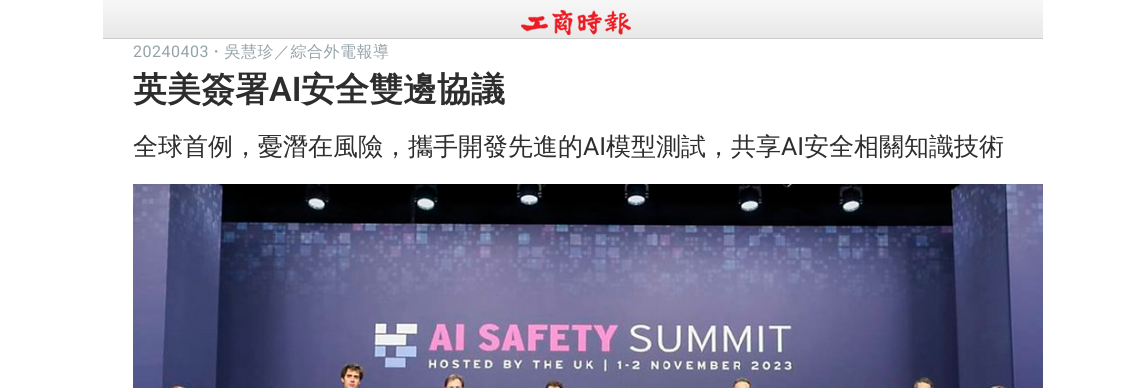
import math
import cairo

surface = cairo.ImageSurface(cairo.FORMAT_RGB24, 1145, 388)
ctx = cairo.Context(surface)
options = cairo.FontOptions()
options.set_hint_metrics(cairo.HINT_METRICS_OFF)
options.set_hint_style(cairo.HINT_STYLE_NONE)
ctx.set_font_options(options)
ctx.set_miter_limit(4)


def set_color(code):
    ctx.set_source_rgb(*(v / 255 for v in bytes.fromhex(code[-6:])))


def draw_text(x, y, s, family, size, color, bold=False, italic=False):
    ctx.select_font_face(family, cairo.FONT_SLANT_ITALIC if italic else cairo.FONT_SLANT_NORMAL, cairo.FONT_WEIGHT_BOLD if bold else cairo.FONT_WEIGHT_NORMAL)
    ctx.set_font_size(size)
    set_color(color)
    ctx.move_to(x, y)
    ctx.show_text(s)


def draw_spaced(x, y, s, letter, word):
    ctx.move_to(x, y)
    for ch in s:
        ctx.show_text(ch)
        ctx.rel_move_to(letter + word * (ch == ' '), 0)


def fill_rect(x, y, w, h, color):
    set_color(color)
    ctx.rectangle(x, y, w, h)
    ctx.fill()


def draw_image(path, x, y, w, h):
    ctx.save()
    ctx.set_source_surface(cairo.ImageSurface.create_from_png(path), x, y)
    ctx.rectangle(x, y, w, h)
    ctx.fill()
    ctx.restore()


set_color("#ffffff")
ctx.paint()
gradient = cairo.LinearGradient(573, 0, 573, 38)
gradient.add_color_stop_rgba(0, 0.969, 0.969, 0.969, 1)
gradient.add_color_stop_rgba(1, 0.91, 0.91, 0.91, 1)
ctx.set_source(gradient)
ctx.rectangle(103, 0, 940, 38)
ctx.fill()
fill_rect(103, 38, 940, 1, "#cccccc")
draw_image("assets/img1.png", 521, 10, 110, 25)
ctx.select_font_face("Roboto")
ctx.set_font_size(16)
set_color("#95a3a9")
draw_spaced(133, 57, "20240403", 0.5, 0)
ctx.select_font_face("WenQuanYi Zen Hei Medium")
draw_spaced(208, 57, "・吳慧珍／綜合外電報導", 0.5, 0)
draw_text(133, 101, "英美簽署", "WenQuanYi Zen Hei", 34, "#2d2d2d", bold=True)
draw_text(269, 101, "AI", "Roboto SemiBold", 34, "#2d2d2d")
draw_text(301, 101, "安全雙邊協議", "WenQuanYi Zen Hei", 34, "#2d2d2d", bold=True)
draw_text(133, 155, "全球首例，憂潛在風險，攜手開發先進的", "WenQuanYi Zen Hei Medium", 25, "#2d2d2d")
draw_text(583, 155, "AI", "Roboto", 25, "#2d2d2d")
draw_text(606, 155, "模型測試，共享", "WenQuanYi Zen Hei Medium", 25, "#2d2d2d")
draw_text(781, 155, "AI", "Roboto", 25, "#2d2d2d")
draw_text(804, 155, "安全相關知識技術", "WenQuanYi Zen Hei Medium", 25, "#2d2d2d")
draw_image("assets/img2.png", 133, 184, 910, 204)
surface.write_to_png("output.png")
